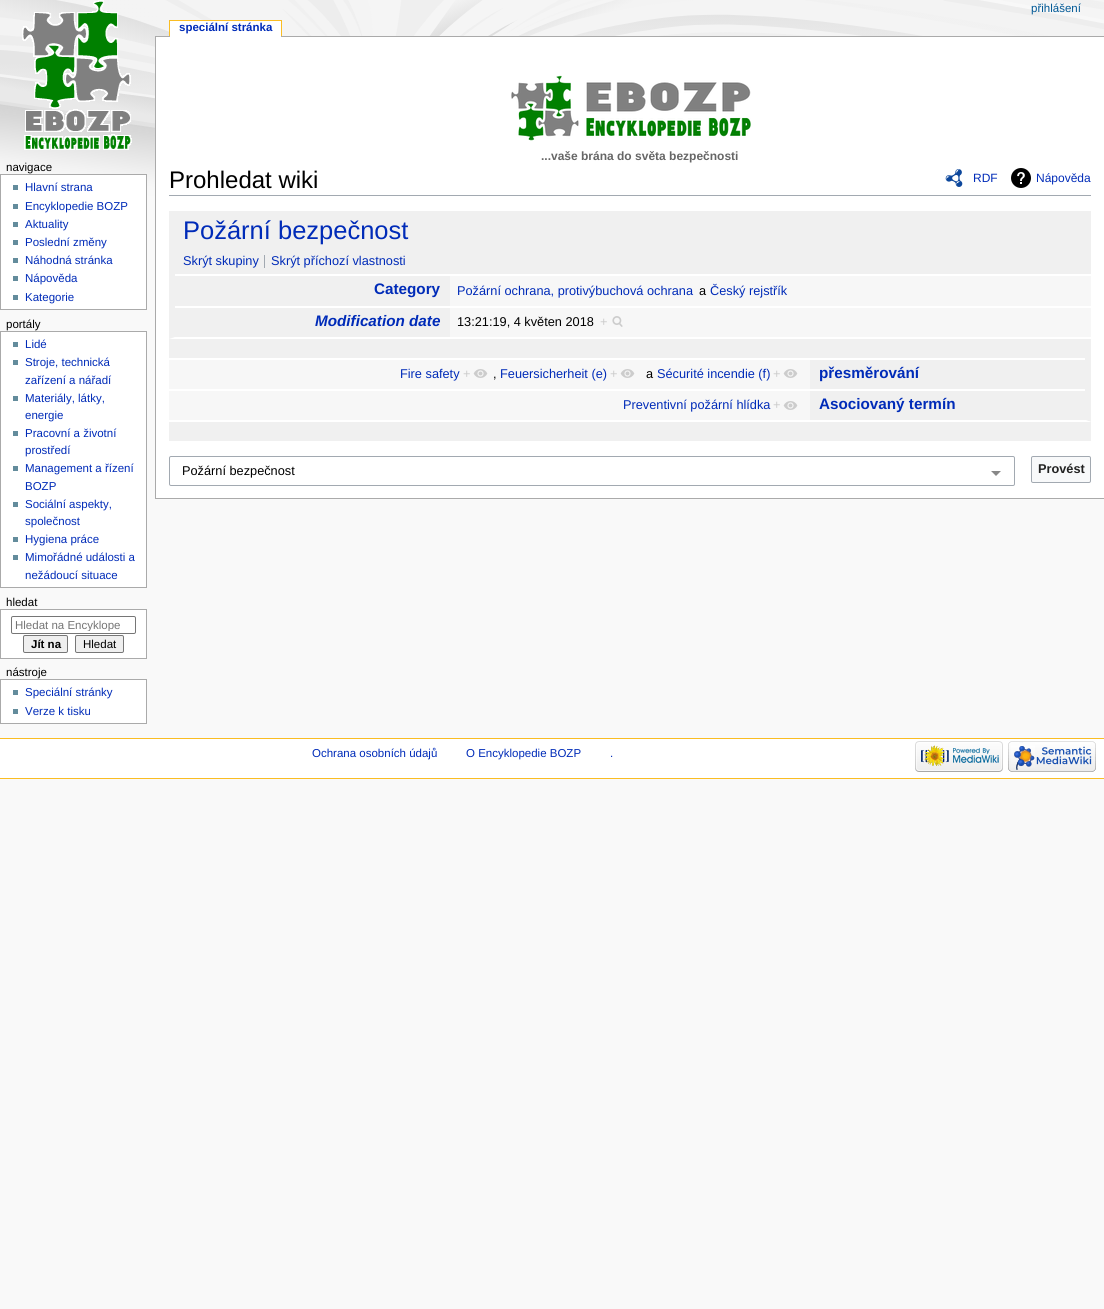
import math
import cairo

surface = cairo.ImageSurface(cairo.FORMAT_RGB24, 1104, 1309)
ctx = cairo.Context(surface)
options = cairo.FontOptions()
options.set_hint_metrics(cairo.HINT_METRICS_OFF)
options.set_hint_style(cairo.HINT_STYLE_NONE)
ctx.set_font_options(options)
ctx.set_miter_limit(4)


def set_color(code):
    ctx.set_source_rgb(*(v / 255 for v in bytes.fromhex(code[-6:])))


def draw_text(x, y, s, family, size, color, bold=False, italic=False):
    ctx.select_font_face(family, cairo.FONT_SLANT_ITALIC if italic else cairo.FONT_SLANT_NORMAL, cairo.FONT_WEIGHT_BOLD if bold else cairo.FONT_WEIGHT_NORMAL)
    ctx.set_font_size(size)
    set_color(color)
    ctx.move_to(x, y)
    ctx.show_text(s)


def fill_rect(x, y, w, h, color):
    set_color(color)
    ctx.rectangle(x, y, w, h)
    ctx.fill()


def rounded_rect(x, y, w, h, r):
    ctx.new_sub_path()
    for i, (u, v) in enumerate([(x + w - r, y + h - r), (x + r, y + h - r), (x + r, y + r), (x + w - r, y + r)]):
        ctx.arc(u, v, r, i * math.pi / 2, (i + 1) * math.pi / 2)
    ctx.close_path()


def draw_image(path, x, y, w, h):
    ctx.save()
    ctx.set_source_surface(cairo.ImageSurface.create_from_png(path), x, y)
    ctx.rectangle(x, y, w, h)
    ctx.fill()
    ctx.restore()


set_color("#f9f9f9")
ctx.paint()
draw_image("assets/img1.png", 0, 0, 1104, 210)
draw_image("assets/img2.png", 22, 0, 110, 150)
draw_text(1031, 12, "přihlášení", "Liberation Sans", 11.5, "#005896")
fill_rect(155, 36, 949, 1, "#aaaaaa")
fill_rect(170, 21, 111, 16, "#ffffff")
draw_text(179, 31, "speciální stránka", "Liberation Sans", 11.5, "#002bb8", bold=True)
fill_rect(169, 20, 113, 1, "#fabd23")
fill_rect(281, 20, 1, 16, "#fabd23")
fill_rect(169, 20, 1, 16, "#fabd23")
draw_text(6, 171, "navigace", "Liberation Sans", 11.5, "#000000")
set_color("#ffffff")
ctx.rectangle(0.5, 174.5, 146, 135)
ctx.fill_preserve()
set_color("#aaaaaa")
ctx.set_line_width(1)
ctx.stroke()
fill_rect(13, 185, 5, 5, "#638c9c")
draw_text(25, 191, "Hlavní strana", "Liberation Sans", 11.5, "#002bb8")
fill_rect(13, 204, 5, 5, "#638c9c")
draw_text(25, 210, "Encyklopedie BOZP", "Liberation Sans", 11.5, "#002bb8")
fill_rect(13, 222, 5, 5, "#638c9c")
draw_text(25, 228, "Aktuality", "Liberation Sans", 11.5, "#002bb8")
fill_rect(13, 240, 5, 5, "#638c9c")
draw_text(25, 246, "Poslední změny", "Liberation Sans", 11.5, "#002bb8")
fill_rect(13, 258, 5, 5, "#638c9c")
draw_text(25, 264, "Náhodná stránka", "Liberation Sans", 11.5, "#002bb8")
fill_rect(13, 276, 5, 5, "#638c9c")
draw_text(25, 282, "Nápověda", "Liberation Sans", 11.5, "#002bb8")
fill_rect(13, 295, 5, 5, "#638c9c")
draw_text(25, 301, "Kategorie", "Liberation Sans", 11.5, "#002bb8")
draw_text(6, 328, "portály", "Liberation Sans", 11.5, "#000000")
set_color("#ffffff")
ctx.rectangle(0.5, 331.5, 146, 256)
ctx.fill_preserve()
set_color("#aaaaaa")
ctx.stroke()
fill_rect(13, 342, 5, 5, "#638c9c")
draw_text(25, 348, "Lidé", "Liberation Sans", 11.5, "#002bb8")
fill_rect(13, 360, 5, 5, "#638c9c")
draw_text(25, 366, "Stroje, technická", "Liberation Sans", 11.5, "#002bb8")
draw_text(25, 384, "zařízení a nářadí", "Liberation Sans", 11.5, "#002bb8")
fill_rect(13, 396, 5, 5, "#638c9c")
draw_text(25, 402, "Materiály, látky,", "Liberation Sans", 11.5, "#002bb8")
draw_text(25, 419, "energie", "Liberation Sans", 11.5, "#002bb8")
fill_rect(13, 431, 5, 5, "#638c9c")
draw_text(25, 437, "Pracovní a životní", "Liberation Sans", 11.5, "#002bb8")
draw_text(25, 454, "prostředí", "Liberation Sans", 11.5, "#002bb8")
fill_rect(13, 466, 5, 5, "#638c9c")
draw_text(25, 472, "Management a řízení", "Liberation Sans", 11.5, "#002bb8")
draw_text(25, 490, "BOZP", "Liberation Sans", 11.5, "#002bb8")
fill_rect(13, 502, 5, 5, "#638c9c")
draw_text(25, 508, "Sociální aspekty,", "Liberation Sans", 11.5, "#002bb8")
draw_text(25, 525, "společnost", "Liberation Sans", 11.5, "#002bb8")
fill_rect(13, 537, 5, 5, "#638c9c")
draw_text(25, 543, "Hygiena práce", "Liberation Sans", 11.5, "#002bb8")
fill_rect(13, 555, 5, 5, "#638c9c")
draw_text(25, 561, "Mimořádné události a", "Liberation Sans", 11.5, "#002bb8")
draw_text(25, 579, "nežádoucí situace", "Liberation Sans", 11.5, "#002bb8")
draw_text(6, 606, "hledat", "Liberation Sans", 11.5, "#000000")
set_color("#ffffff")
ctx.rectangle(0.5, 609.5, 146, 49)
ctx.fill_preserve()
set_color("#aaaaaa")
ctx.stroke()
rounded_rect(11.5, 616.5, 124, 17, 1.5)
set_color("#767676")
ctx.stroke()
ctx.save()
ctx.rectangle(15, 619, 105, 12)
ctx.clip()
draw_text(15, 629, "Hledat na Encyklope", "Liberation Sans", 11.5, "#757575")
ctx.restore()
set_color("#efefef")
rounded_rect(23.5, 635.5, 44, 17, 1.5)
ctx.fill_preserve()
set_color("#767676")
ctx.stroke()
draw_text(31, 648, "Jít na", "Liberation Sans", 11.5, "#000000", bold=True)
set_color("#efefef")
rounded_rect(75.5, 635.5, 48, 17, 1.5)
ctx.fill_preserve()
set_color("#767676")
ctx.stroke()
draw_text(83, 648, "Hledat", "Liberation Sans", 11.5, "#000000")
draw_text(6, 676, "nástroje", "Liberation Sans", 11.5, "#000000")
set_color("#ffffff")
ctx.rectangle(0.5, 679.5, 146, 44)
ctx.fill_preserve()
set_color("#aaaaaa")
ctx.stroke()
fill_rect(13, 690, 5, 5, "#638c9c")
draw_text(25, 696, "Speciální stránky", "Liberation Sans", 11.5, "#002bb8")
fill_rect(13, 709, 5, 5, "#638c9c")
draw_text(25, 715, "Verze k tisku", "Liberation Sans", 11.5, "#002bb8")
fill_rect(156, 37, 948, 461, "#ffffff")
fill_rect(155, 498, 949, 1, "#aaaaaa")
fill_rect(155, 36, 1, 463, "#aaaaaa")
draw_image("assets/img3.png", 511, 75, 240, 66)
draw_text(541, 160, "...vaše brána do světa bezpečnosti", "Liberation Sans", 12, "#666666", bold=True)
fill_rect(169, 195, 922, 1, "#a2a9b1")
draw_text(169, 188, "Prohledat wiki", "Liberation Sans", 24, "#000000")
draw_image("assets/img4.png", 945, 169, 18, 18)
draw_text(973, 182, "RDF", "Liberation Sans", 12, "#002bb8")
draw_image("assets/img5.png", 1011, 168, 20, 20)
draw_text(1036, 182, "Nápověda", "Liberation Sans", 12, "#002bb8")
fill_rect(169, 211, 922, 38, "#f0f0f0")
draw_text(183, 239, "Požární bezpečnost", "Liberation Sans", 25.5, "#002bb8")
fill_rect(169, 249, 922, 25, "#f0f0f0")
draw_text(183, 265, "Skrýt skupiny", "Liberation Sans", 12.75, "#002bb8")
fill_rect(264, 255, 1, 13, "#a2a9b1")
draw_text(271, 265, "Skrýt příchozí vlastnosti", "Liberation Sans", 12.75, "#002bb8")
set_color("#f0f0f0")
ctx.new_path()
ctx.move_to(169, 339)
ctx.line_to(169, 274)
ctx.line_to(175, 274)
ctx.line_to(175, 337)
ctx.close_path()
ctx.fill()
fill_rect(175, 276, 275, 30, "#f0f0f0")
draw_text(374, 294, "Category", "Liberation Sans", 15.25, "#002bb8", bold=True)
fill_rect(450, 276, 641, 30, "#f7f7f7")
draw_text(457, 295, "Požární ochrana, protivýbuchová ochrana", "Liberation Sans", 12.75, "#002bb8")
draw_text(699, 295, "a", "Liberation Sans", 12.75, "#000000")
draw_text(710, 295, "Český rejstřík", "Liberation Sans", 12.75, "#002bb8")
fill_rect(175, 308, 275, 29, "#f0f0f0")
draw_text(315, 326, "Modification date", "Liberation Sans", 15.25, "#002bb8", bold=True, italic=True)
fill_rect(450, 308, 641, 29, "#f7f7f7")
draw_text(457, 326, "13:21:19, 4 květen 2018", "Liberation Sans", 12.75, "#000000")
draw_text(600, 326, "+", "Liberation Sans", 12.75, "#cccccc")
draw_image("assets/img6.png", 612, 316, 11, 11)
fill_rect(169, 339, 922, 19, "#f0f0f0")
ctx.new_path()
ctx.move_to(1091, 358)
ctx.line_to(1091, 422)
ctx.line_to(1085, 420)
ctx.line_to(1085, 358)
ctx.close_path()
ctx.fill()
set_color("#ffffff")
ctx.new_path()
ctx.move_to(1091, 422)
ctx.line_to(169, 422)
ctx.line_to(169, 420)
ctx.line_to(1085, 420)
ctx.close_path()
ctx.fill()
fill_rect(169, 360, 641, 29, "#f7f7f7")
draw_text(400, 378, "Fire safety", "Liberation Sans", 12.75, "#002bb8")
draw_text(463, 378, "+", "Liberation Sans", 12.75, "#cccccc")
draw_image("assets/img7.png", 473, 369, 15, 9)
draw_text(493, 378, ",", "Liberation Sans", 12.75, "#000000")
draw_text(500, 378, "Feuersicherheit (e)", "Liberation Sans", 12.75, "#002bb8")
draw_text(610, 378, "+", "Liberation Sans", 12.75, "#cccccc")
draw_image("assets/img7.png", 620, 369, 15, 9)
draw_text(646, 378, "a", "Liberation Sans", 12.75, "#000000")
draw_text(657, 378, "Sécurité incendie (f)", "Liberation Sans", 12.75, "#002bb8")
draw_text(773, 378, "+", "Liberation Sans", 12.75, "#cccccc")
draw_image("assets/img7.png", 783, 369, 15, 9)
fill_rect(810, 360, 275, 29, "#f0f0f0")
draw_text(819, 378, "přesměrování", "Liberation Sans", 15.25, "#002bb8", bold=True)
fill_rect(169, 391, 641, 29, "#f7f7f7")
draw_text(623, 409, "Preventivní požární hlídka", "Liberation Sans", 12.75, "#002bb8")
draw_text(773, 409, "+", "Liberation Sans", 12.75, "#cccccc")
draw_image("assets/img7.png", 783, 401, 15, 9)
fill_rect(810, 391, 275, 29, "#f0f0f0")
draw_text(819, 409, "Asociovaný termín", "Liberation Sans", 15.25, "#002bb8", bold=True)
fill_rect(169, 422, 922, 19, "#f0f0f0")
set_color("#888888")
ctx.new_path()
ctx.move_to(991, 471)
ctx.line_to(996, 476)
ctx.line_to(1001, 471)
ctx.close_path()
ctx.fill()
rounded_rect(169.5, 456.5, 845, 29, 1.5)
set_color("#a2a9b1")
ctx.stroke()
draw_text(182, 475, "Požární bezpečnost", "Liberation Sans", 12.75, "#000000")
set_color("#f8f9fa")
rounded_rect(1031.5, 456.5, 59, 26, 1.5)
ctx.fill_preserve()
set_color("#a2a9b1")
ctx.stroke()
draw_text(1038, 473, "Provést", "Liberation Sans", 12.75, "#222222", bold=True)
fill_rect(0, 739, 1104, 39, "#ffffff")
fill_rect(0, 738, 1104, 1, "#fabd23")
fill_rect(0, 778, 1104, 1, "#fabd23")
draw_text(312, 757, "Ochrana osobních údajů", "Liberation Sans", 11.5, "#002bb8")
draw_text(466, 757, "O Encyklopedie BOZP", "Liberation Sans", 11.5, "#002bb8")
draw_text(610, 757, ".", "Liberation Sans", 11.5, "#002bb8")
draw_image("assets/img8.png", 915, 741, 88, 31)
draw_image("assets/img9.png", 1008, 741, 88, 31)
surface.write_to_png("output.png")
